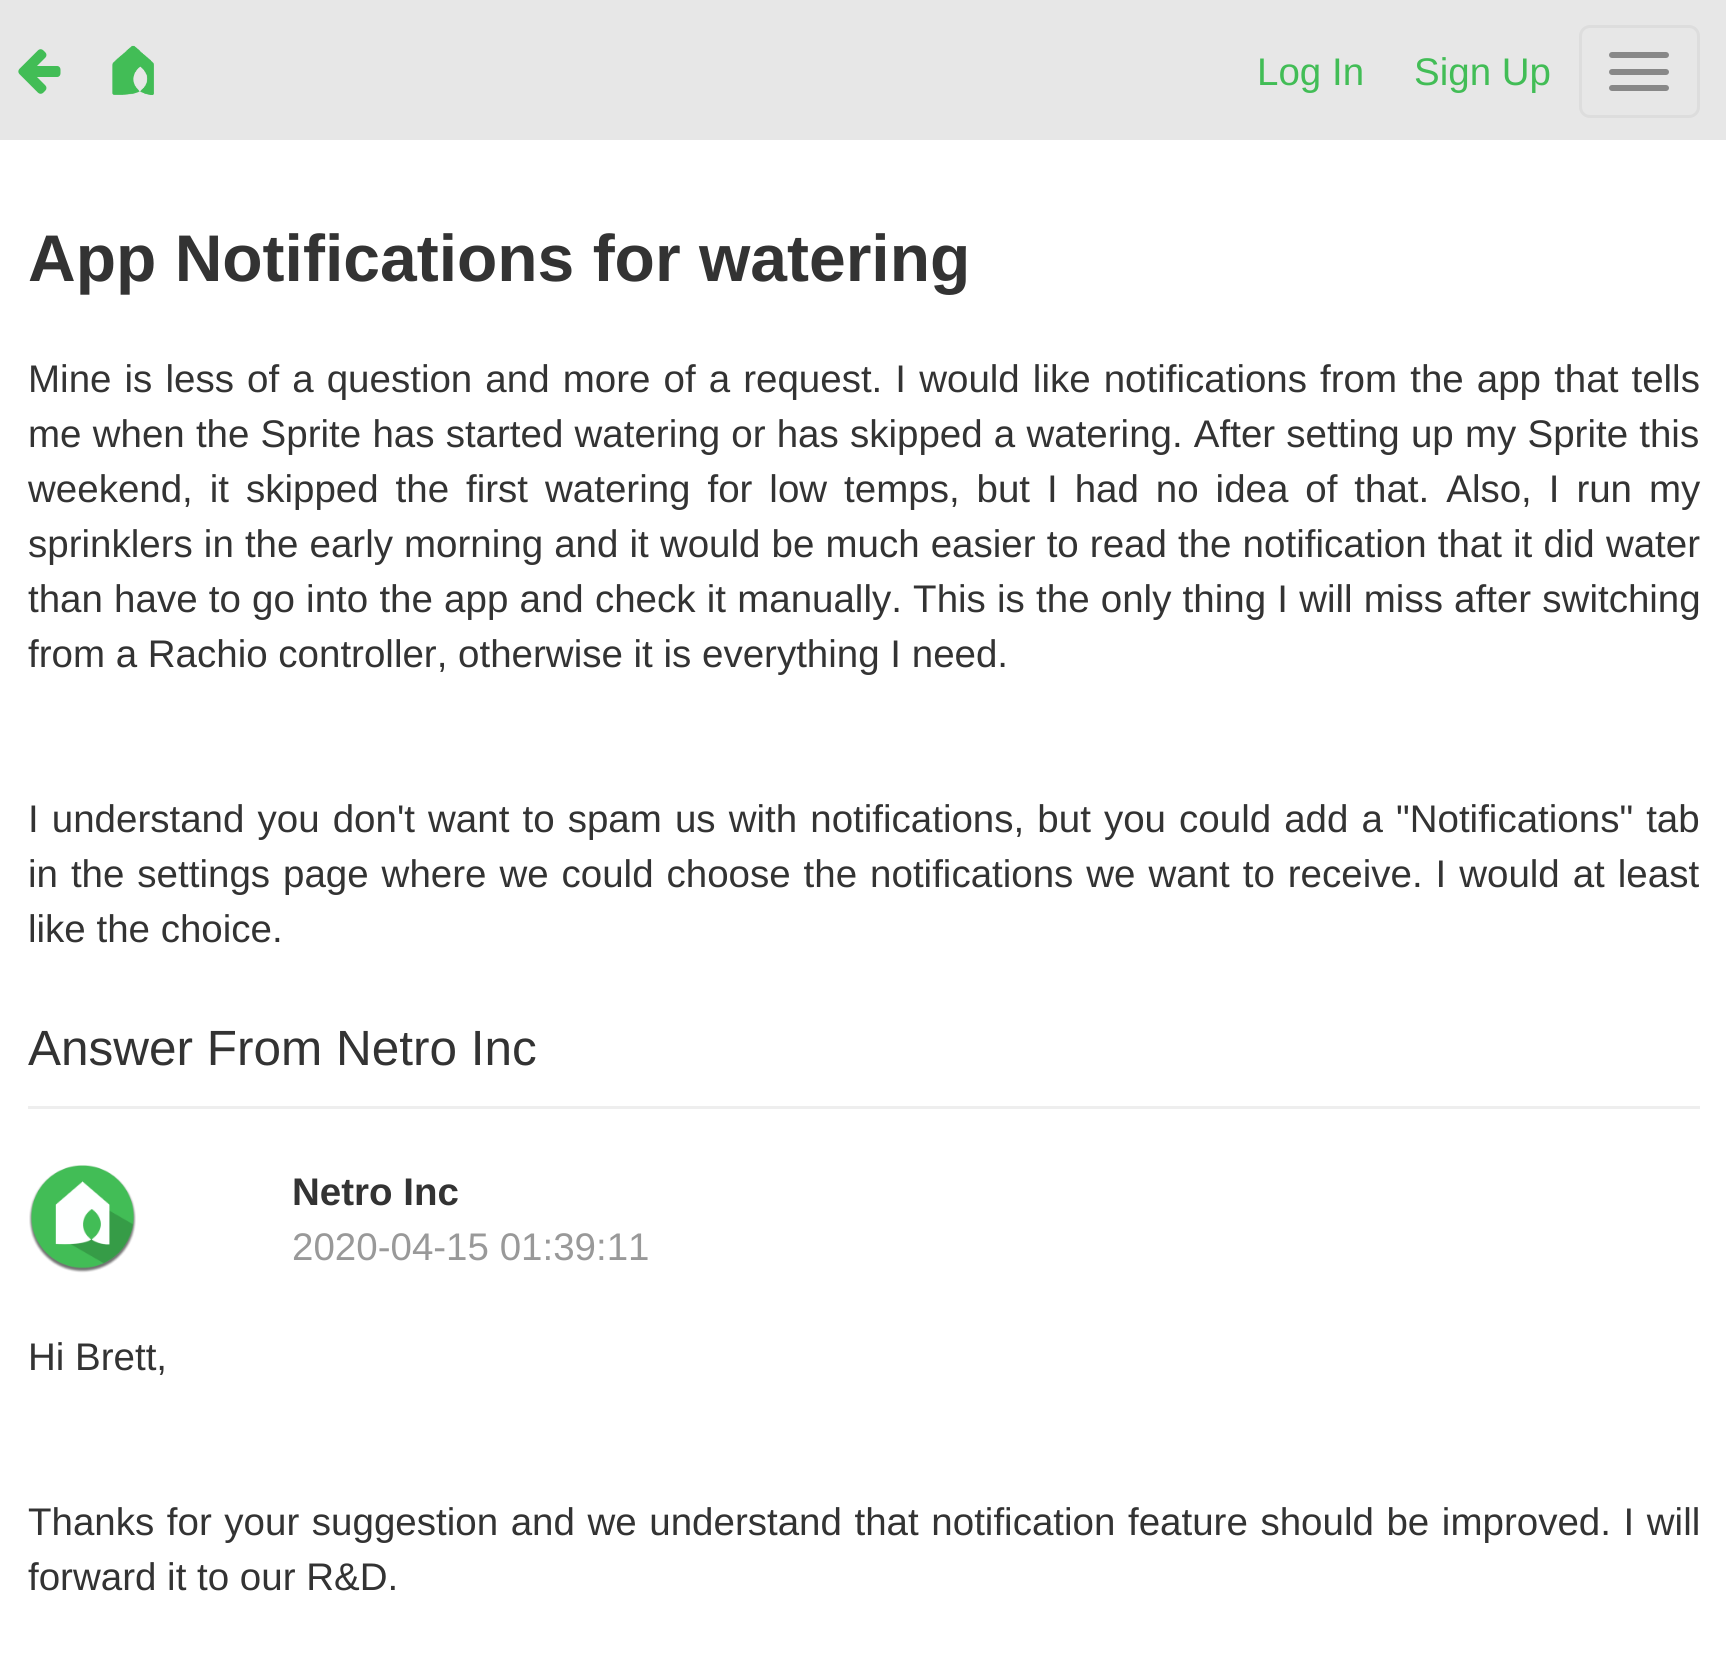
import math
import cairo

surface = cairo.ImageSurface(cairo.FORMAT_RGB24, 1726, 1665)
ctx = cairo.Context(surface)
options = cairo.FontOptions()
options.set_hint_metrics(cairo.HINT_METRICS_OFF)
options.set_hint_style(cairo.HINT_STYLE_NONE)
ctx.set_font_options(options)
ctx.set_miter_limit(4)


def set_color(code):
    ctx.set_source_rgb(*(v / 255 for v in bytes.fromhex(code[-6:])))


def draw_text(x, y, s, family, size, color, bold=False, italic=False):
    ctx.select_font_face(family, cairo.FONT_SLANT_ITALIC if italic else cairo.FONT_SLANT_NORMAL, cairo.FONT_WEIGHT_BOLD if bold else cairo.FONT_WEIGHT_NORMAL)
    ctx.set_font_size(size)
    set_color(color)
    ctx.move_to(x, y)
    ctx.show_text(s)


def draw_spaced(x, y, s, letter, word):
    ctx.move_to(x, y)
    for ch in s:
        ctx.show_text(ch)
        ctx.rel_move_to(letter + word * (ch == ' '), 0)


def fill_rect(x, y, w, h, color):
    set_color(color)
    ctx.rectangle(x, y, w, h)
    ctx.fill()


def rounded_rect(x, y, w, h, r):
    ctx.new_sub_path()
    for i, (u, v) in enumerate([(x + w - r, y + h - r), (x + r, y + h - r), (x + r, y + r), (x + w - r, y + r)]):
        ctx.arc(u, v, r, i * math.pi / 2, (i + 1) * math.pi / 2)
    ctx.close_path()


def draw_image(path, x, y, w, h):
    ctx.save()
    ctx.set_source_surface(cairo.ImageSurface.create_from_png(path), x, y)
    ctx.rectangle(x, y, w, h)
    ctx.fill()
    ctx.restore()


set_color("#ffffff")
ctx.paint()
fill_rect(0, 0, 1726, 140, "#e7e7e7")
draw_image("assets/img1.png", 18, 49, 43, 45)
draw_image("assets/img2.png", 112, 45, 42, 50)
draw_text(1257, 85, "Log In", "Liberation Sans", 38.5, "#42bd56")
draw_text(1414, 85, "Sign Up", "Liberation Sans", 38.5, "#42bd56")
rounded_rect(1580.5, 26.5, 118, 90, 9.5)
set_color("#dddddd")
ctx.set_line_width(3)
ctx.stroke()
set_color("#888888")
rounded_rect(1609, 52, 60, 6, 3)
ctx.fill()
rounded_rect(1609, 69, 60, 6, 3)
ctx.fill()
rounded_rect(1609, 85, 60, 6, 3)
ctx.fill()
draw_text(28, 281, "App Notifications for watering", "Liberation Sans", 66, "#333333", bold=True)
ctx.select_font_face("Liberation Sans")
ctx.set_font_size(38.5)
draw_spaced(28, 392, "Mine is less of a question and more of a request. I would like notifications from the app that tells", 0, 2.4)
draw_spaced(28, 447, "me when the Sprite has started watering or has skipped a watering. After setting up my Sprite this", 0, 0.5)
draw_spaced(28, 502, "weekend, it skipped the first watering for low temps, but I had no idea of that. Also, I run my", 0, 6.25)
draw_spaced(28, 557, "sprinklers in the early morning and it would be much easier to read the notification that it did water", 0, 0.4)
draw_spaced(28, 612, "than have to go into the app and check it manually. This is the only thing I will miss after switching", 0, 0.5)
draw_text(28, 667, "from a Rachio controller, otherwise it is everything I need.", "Liberation Sans", 38.5, "#333333")
draw_spaced(28, 832, "I understand you don't want to spam us with notifications, but you could add a \"Notifications\" tab", 0, 2.4)
draw_spaced(28, 887, "in the settings page where we could choose the notifications we want to receive. I would at least", 0, 2.25)
draw_text(28, 942, "like the choice.", "Liberation Sans", 38.5, "#333333")
draw_text(28, 1065, "Answer From Netro Inc", "Liberation Sans", 49.5, "#333333")
fill_rect(28, 1106, 1672, 3, "#eeeeee")
draw_image("assets/img3.png", 29, 1165, 107, 108)
draw_text(292, 1205, "Netro Inc", "Liberation Sans", 38.5, "#333333", bold=True)
draw_text(292, 1260, "2020-04-15 01:39:11", "Liberation Sans", 38.5, "#999999")
draw_text(28, 1370, "Hi Brett,", "Liberation Sans", 38.5, "#333333")
draw_spaced(28, 1535, "Thanks for your suggestion and we understand that notification feature should be improved. I will", 0, 1.9)
draw_text(28, 1590, "forward it to our R&D.", "Liberation Sans", 38.5, "#333333")
surface.write_to_png("output.png")
